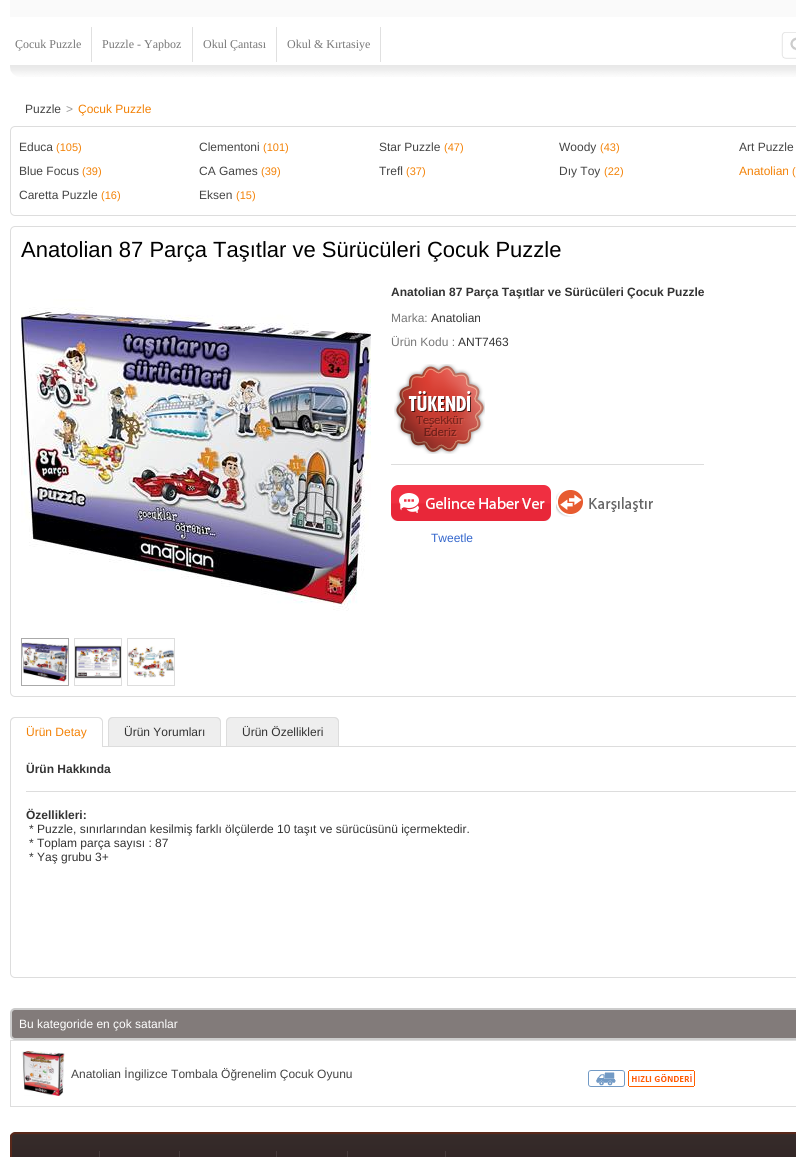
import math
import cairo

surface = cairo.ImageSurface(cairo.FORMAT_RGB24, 796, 1157)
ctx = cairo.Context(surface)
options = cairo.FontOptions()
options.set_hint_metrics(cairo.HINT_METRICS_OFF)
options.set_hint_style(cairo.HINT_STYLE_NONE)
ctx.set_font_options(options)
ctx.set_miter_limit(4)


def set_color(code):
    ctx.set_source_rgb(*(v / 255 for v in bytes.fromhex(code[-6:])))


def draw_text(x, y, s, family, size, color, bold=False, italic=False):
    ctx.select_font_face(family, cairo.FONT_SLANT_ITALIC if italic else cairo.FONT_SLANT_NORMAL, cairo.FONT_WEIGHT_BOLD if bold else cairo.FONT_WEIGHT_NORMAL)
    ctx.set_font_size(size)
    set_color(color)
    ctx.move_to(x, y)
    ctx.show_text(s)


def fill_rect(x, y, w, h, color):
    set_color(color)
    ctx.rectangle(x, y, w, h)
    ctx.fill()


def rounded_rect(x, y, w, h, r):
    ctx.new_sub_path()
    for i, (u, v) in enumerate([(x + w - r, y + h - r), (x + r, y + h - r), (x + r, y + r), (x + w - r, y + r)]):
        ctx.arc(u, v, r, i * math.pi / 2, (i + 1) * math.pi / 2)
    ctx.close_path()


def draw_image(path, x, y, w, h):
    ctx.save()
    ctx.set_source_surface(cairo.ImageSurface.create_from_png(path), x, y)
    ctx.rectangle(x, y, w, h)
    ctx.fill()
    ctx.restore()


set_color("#ffffff")
ctx.paint()
draw_image("assets/img1.png", 16, 76, 4, 1)
fill_rect(10, 0, 786, 17, "#fafafa")
draw_image("assets/img2.png", 10, 65, 786, 12)
fill_rect(91, 27, 1, 35, "#e0e0e0")
draw_text(15, 48, "Çocuk Puzzle", "Liberation Serif", 12, "#777777")
fill_rect(192, 27, 1, 35, "#e0e0e0")
draw_text(102, 48, "Puzzle - Yapboz", "Liberation Serif", 12, "#777777")
fill_rect(276, 27, 1, 35, "#e0e0e0")
draw_text(203, 48, "Okul Çantası", "Liberation Serif", 12, "#777777")
fill_rect(380, 27, 1, 35, "#e0e0e0")
draw_text(287, 48, "Okul & Kırtasiye", "Liberation Serif", 12, "#777777")
draw_image("assets/img3.png", 781, 32, 15, 27)
draw_text(25, 113, "Puzzle", "Liberation Sans", 12, "#444444")
draw_text(66, 113, ">", "Liberation Sans", 12, "#999999")
draw_text(78, 113, "Çocuk Puzzle", "Liberation Sans", 12, "#f38207")
rounded_rect(10.5, 126.5, 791, 89, 4.5)
set_color("#dddddd")
ctx.set_line_width(1)
ctx.stroke()
draw_text(19, 151, "Educa", "Liberation Sans", 12, "#444444")
draw_text(56, 151, "(105)", "Liberation Sans", 11, "#f38207")
draw_text(199, 151, "Clementoni", "Liberation Sans", 12, "#444444")
draw_text(263, 151, "(101)", "Liberation Sans", 11, "#f38207")
draw_text(379, 151, "Star Puzzle", "Liberation Sans", 12, "#444444")
draw_text(444, 151, "(47)", "Liberation Sans", 11, "#f38207")
draw_text(559, 151, "Woody", "Liberation Sans", 12, "#444444")
draw_text(600, 151, "(43)", "Liberation Sans", 11, "#f38207")
draw_text(739, 151, "Art Puzzle", "Liberation Sans", 12, "#444444")
draw_text(19, 175, "Blue Focus", "Liberation Sans", 12, "#444444")
draw_text(82, 175, "(39)", "Liberation Sans", 11, "#f38207")
draw_text(199, 175, "CA Games", "Liberation Sans", 12, "#444444")
draw_text(261, 175, "(39)", "Liberation Sans", 11, "#f38207")
draw_text(379, 175, "Trefl", "Liberation Sans", 12, "#444444")
draw_text(406, 175, "(37)", "Liberation Sans", 11, "#f38207")
draw_text(559, 175, "Dıy Toy", "Liberation Sans", 12, "#444444")
draw_text(604, 175, "(22)", "Liberation Sans", 11, "#f38207")
draw_text(739, 175, "Anatolian", "Liberation Sans", 12, "#f38207")
draw_text(792, 175, "(", "Liberation Sans", 11, "#f38207")
draw_text(19, 199, "Caretta Puzzle", "Liberation Sans", 12, "#444444")
draw_text(101, 199, "(16)", "Liberation Sans", 11, "#f38207")
draw_text(199, 199, "Eksen", "Liberation Sans", 12, "#444444")
draw_text(236, 199, "(15)", "Liberation Sans", 11, "#f38207")
rounded_rect(10.5, 226.5, 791, 470, 4.5)
set_color("#dddddd")
ctx.stroke()
draw_text(21, 257, "Anatolian 87 Parça Taşıtlar ve Sürücüleri Çocuk Puzzle", "Liberation Sans", 22, "#000000")
draw_image("assets/img4.png", 21, 299, 350, 312)
ctx.rectangle(21.5, 638.5, 47, 47)
set_color("#aaaaaa")
ctx.stroke()
draw_image("assets/img5.png", 22, 642, 46, 41)
ctx.rectangle(74.5, 638.5, 47, 47)
set_color("#dddddd")
ctx.stroke()
draw_image("assets/img6.png", 75, 645, 46, 34)
ctx.rectangle(127.5, 638.5, 47, 47)
ctx.stroke()
draw_image("assets/img7.png", 128, 646, 46, 33)
draw_text(391, 296, "Anatolian 87 Parça Taşıtlar ve Sürücüleri Çocuk Puzzle", "Liberation Sans", 12, "#333333", bold=True)
draw_text(391, 322, "Marka:", "Liberation Sans", 12, "#777777")
draw_text(431, 322, "Anatolian", "Liberation Sans", 12, "#333333")
draw_text(391, 346, "Ürün Kodu :", "Liberation Sans", 12, "#777777")
draw_text(458, 346, "ANT7463", "Liberation Sans", 12, "#333333")
draw_image("assets/img8.png", 394, 364, 91, 90)
fill_rect(391, 464, 313, 1, "#dddddd")
draw_image("assets/img9.png", 391, 485, 160, 36)
draw_image("assets/img10.png", 556, 490, 97, 27)
draw_text(431, 542, "Tweetle", "Liberation Sans", 12, "#3366cc")
ctx.new_path()
ctx.move_to(10.5, 746.5)
ctx.line_to(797, 746.5)
ctx.curve_to(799.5, 746.5, 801.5, 748.5, 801.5, 751)
ctx.line_to(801.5, 973)
ctx.curve_to(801.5, 975.5, 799.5, 977.5, 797, 977.5)
ctx.line_to(15, 977.5)
ctx.curve_to(12.5, 977.5, 10.5, 975.5, 10.5, 973)
ctx.close_path()
set_color("#dddddd")
ctx.stroke()
set_color("#ffffff")
ctx.new_path()
ctx.move_to(15, 717)
ctx.line_to(98, 717)
ctx.curve_to(101, 717, 103, 719, 103, 722)
ctx.line_to(103, 747)
ctx.line_to(10, 747)
ctx.line_to(10, 722)
ctx.curve_to(10, 719, 12, 717, 15, 717)
ctx.close_path()
ctx.fill()
set_color("#dddddd")
ctx.set_fill_rule(cairo.FILL_RULE_EVEN_ODD)
ctx.new_path()
ctx.move_to(15, 717)
ctx.line_to(98, 717)
ctx.curve_to(101, 717, 103, 719, 103, 722)
ctx.line_to(103, 747)
ctx.line_to(10, 747)
ctx.line_to(10, 722)
ctx.curve_to(10, 719, 12, 717, 15, 717)
ctx.close_path()
ctx.move_to(15, 718)
ctx.line_to(98, 718)
ctx.curve_to(100, 718, 102, 720, 102, 722)
ctx.line_to(102, 747)
ctx.line_to(11, 747)
ctx.line_to(11, 722)
ctx.curve_to(11, 720, 13, 718, 15, 718)
ctx.close_path()
ctx.fill()
draw_text(26, 736, "Ürün Detay", "Liberation Sans", 12, "#f38207")
set_color("#eeeeee")
ctx.new_path()
ctx.move_to(113, 717)
ctx.line_to(216, 717)
ctx.curve_to(219, 717, 221, 719, 221, 722)
ctx.line_to(221, 746)
ctx.line_to(108, 746)
ctx.line_to(108, 722)
ctx.curve_to(108, 719, 110, 717, 113, 717)
ctx.close_path()
ctx.fill()
set_color("#dddddd")
ctx.new_path()
ctx.move_to(113, 717)
ctx.line_to(216, 717)
ctx.curve_to(219, 717, 221, 719, 221, 722)
ctx.line_to(221, 746)
ctx.line_to(108, 746)
ctx.line_to(108, 722)
ctx.curve_to(108, 719, 110, 717, 113, 717)
ctx.close_path()
ctx.move_to(113, 718)
ctx.line_to(216, 718)
ctx.curve_to(218, 718, 220, 720, 220, 722)
ctx.line_to(220, 746)
ctx.line_to(109, 746)
ctx.line_to(109, 722)
ctx.curve_to(109, 720, 111, 718, 113, 718)
ctx.close_path()
ctx.fill()
draw_text(124, 736, "Ürün Yorumları", "Liberation Sans", 12, "#333333")
set_color("#eeeeee")
ctx.new_path()
ctx.move_to(231, 717)
ctx.line_to(334, 717)
ctx.curve_to(337, 717, 339, 719, 339, 722)
ctx.line_to(339, 746)
ctx.line_to(226, 746)
ctx.line_to(226, 722)
ctx.curve_to(226, 719, 228, 717, 231, 717)
ctx.close_path()
ctx.fill()
set_color("#dddddd")
ctx.new_path()
ctx.move_to(231, 717)
ctx.line_to(334, 717)
ctx.curve_to(337, 717, 339, 719, 339, 722)
ctx.line_to(339, 746)
ctx.line_to(226, 746)
ctx.line_to(226, 722)
ctx.curve_to(226, 719, 228, 717, 231, 717)
ctx.close_path()
ctx.move_to(231, 718)
ctx.line_to(334, 718)
ctx.curve_to(336, 718, 338, 720, 338, 722)
ctx.line_to(338, 746)
ctx.line_to(227, 746)
ctx.line_to(227, 722)
ctx.curve_to(227, 720, 229, 718, 231, 718)
ctx.close_path()
ctx.fill()
draw_text(242, 736, "Ürün Özellikleri", "Liberation Sans", 12, "#333333")
draw_text(26, 773, "Ürün Hakkında", "Liberation Sans", 12, "#333333", bold=True)
fill_rect(26, 791, 770, 1, "#dddddd")
draw_text(26, 819, "Özellikleri:", "Liberation Sans", 12, "#333333", bold=True)
draw_text(29, 833, "* Puzzle, sınırlarından kesilmiş farklı ölçülerde 10 taşıt ve sürücüsünü içermektedir.", "Liberation Sans", 12, "#333333")
draw_text(29, 847, "* Toplam parça sayısı : 87", "Liberation Sans", 12, "#333333")
draw_text(29, 861, "* Yaş grubu 3+", "Liberation Sans", 12, "#333333")
set_color("#827b7a")
rounded_rect(11, 1009, 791, 30, 4)
ctx.fill_preserve()
set_color("#cccccc")
ctx.set_line_width(2)
ctx.stroke()
draw_text(19, 1028, "Bu kategoride en çok satanlar", "Liberation Sans", 12, "#ffffff")
fill_rect(10, 1040, 786, 1, "#dddddd")
fill_rect(10, 1106, 786, 1, "#dddddd")
fill_rect(10, 1040, 1, 67, "#dddddd")
draw_image("assets/img11.png", 21, 1051, 44, 45)
draw_text(71, 1078, "Anatolian İngilizce Tombala Öğrenelim Çocuk Oyunu", "Liberation Sans", 12, "#444444")
draw_image("assets/img12.png", 588, 1070, 37, 17)
draw_image("assets/img13.png", 628, 1070, 67, 17)
draw_image("assets/img14.png", 10, 1134, 786, 23)
rounded_rect(11, 1133, 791, 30, 4)
set_color("#59281a")
ctx.stroke()
fill_rect(99, 1151, 1, 6, "#473c3c")
fill_rect(179, 1151, 1, 6, "#473c3c")
fill_rect(276, 1151, 1, 6, "#473c3c")
fill_rect(347, 1151, 1, 6, "#473c3c")
fill_rect(445, 1151, 1, 6, "#473c3c")
surface.write_to_png("output.png")
